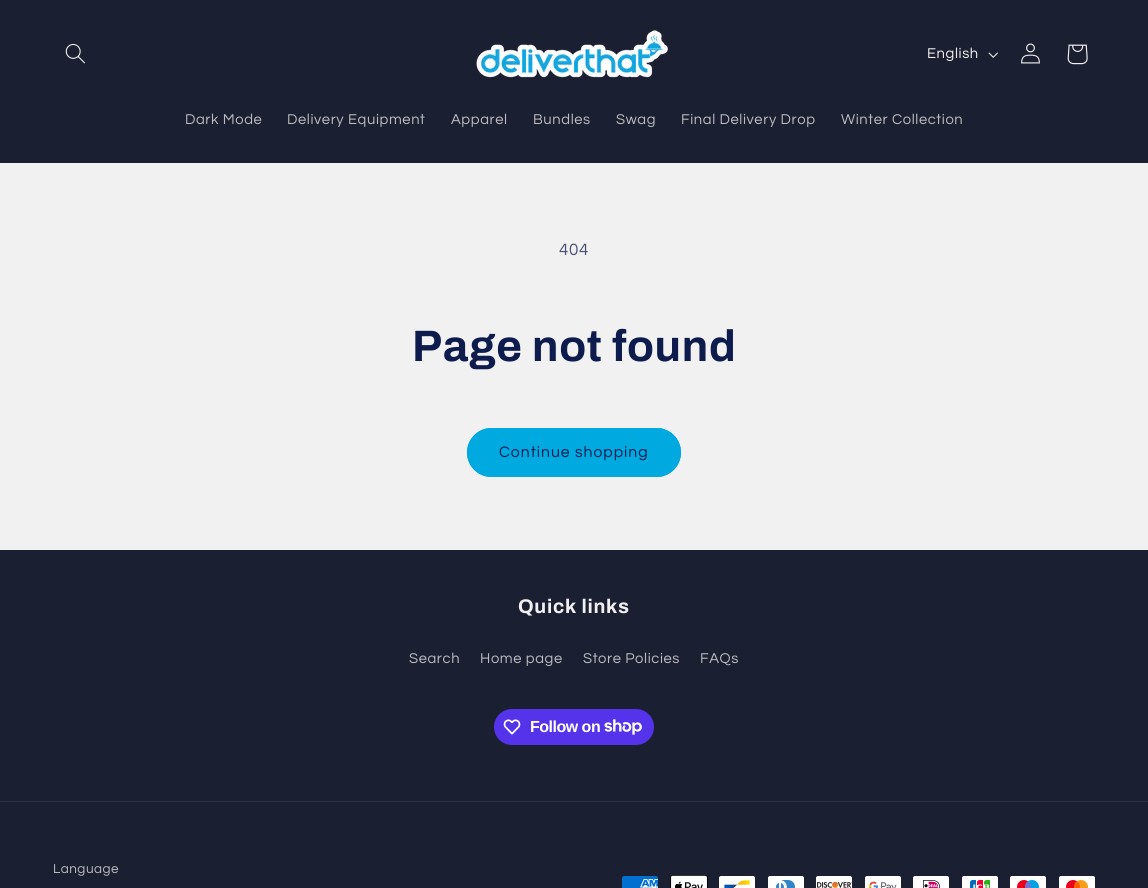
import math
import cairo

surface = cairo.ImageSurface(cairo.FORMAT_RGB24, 1148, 888)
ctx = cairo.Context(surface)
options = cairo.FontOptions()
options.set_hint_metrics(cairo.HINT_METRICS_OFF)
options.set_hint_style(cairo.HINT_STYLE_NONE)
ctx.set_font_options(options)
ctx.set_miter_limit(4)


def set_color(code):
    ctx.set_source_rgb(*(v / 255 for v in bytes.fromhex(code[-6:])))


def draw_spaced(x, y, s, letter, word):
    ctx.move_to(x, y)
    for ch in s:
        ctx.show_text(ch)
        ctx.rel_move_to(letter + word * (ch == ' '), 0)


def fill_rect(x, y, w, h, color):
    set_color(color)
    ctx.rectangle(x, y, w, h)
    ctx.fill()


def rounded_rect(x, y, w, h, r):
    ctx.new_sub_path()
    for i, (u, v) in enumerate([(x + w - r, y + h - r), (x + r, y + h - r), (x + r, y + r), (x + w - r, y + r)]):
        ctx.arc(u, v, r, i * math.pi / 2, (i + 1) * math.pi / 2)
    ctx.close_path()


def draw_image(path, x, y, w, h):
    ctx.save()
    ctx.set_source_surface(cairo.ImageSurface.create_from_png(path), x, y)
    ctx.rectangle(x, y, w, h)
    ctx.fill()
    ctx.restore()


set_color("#f1f1f1")
ctx.paint()
fill_rect(0, 0, 1148, 163, "#1b1f32")
draw_image("assets/img1.png", 65, 43, 20, 21)
draw_image("assets/img2.png", 476, 30, 192, 48)
ctx.select_font_face("Questrial")
ctx.set_font_size(14.75)
set_color("#f1f1f1")
draw_spaced(927, 58, "English", 0.6, 0)
draw_image("assets/img3.png", 988, 52, 10, 6)
draw_image("assets/img4.png", 1021, 43, 19, 21)
draw_image("assets/img5.png", 1067, 44, 21, 21)
set_color("#bcbdc1")
draw_spaced(185, 124, "Dark Mode", 0.6, 0)
draw_spaced(287, 124, "Delivery Equipment", 0.6, 0)
draw_spaced(451, 124, "Apparel", 0.6, 0)
draw_spaced(533, 124, "Bundles", 0.6, 0)
draw_spaced(616, 124, "Swag", 0.6, 0)
draw_spaced(681, 124, "Final Delivery Drop", 0.6, 0)
draw_spaced(841, 124, "Winter Collection", 0.6, 0)
ctx.set_font_size(17)
set_color("#475176")
draw_spaced(559, 255, "404", 0.6, 0)
ctx.select_font_face("Archivo", cairo.FONT_SLANT_NORMAL, cairo.FONT_WEIGHT_BOLD)
ctx.set_font_size(44)
set_color("#0e1b4d")
draw_spaced(412, 361, "Page not found", 0.7, 0)
set_color("#00a9e0")
rounded_rect(467, 428, 214, 49, 24.5)
ctx.fill()
rounded_rect(467.5, 428.5, 213, 48, 24)
ctx.set_line_width(1)
ctx.stroke()
ctx.select_font_face("Questrial")
ctx.set_font_size(15.75)
set_color("#0e1b4d")
draw_spaced(499, 457, "Continue shopping", 1, 0)
fill_rect(0, 550, 1148, 338, "#1b1f32")
ctx.select_font_face("Archivo", cairo.FONT_SLANT_NORMAL, cairo.FONT_WEIGHT_BOLD)
ctx.set_font_size(19.75)
set_color("#f1f1f1")
draw_spaced(518, 613, "Quick links", 0.7, 0)
ctx.select_font_face("Questrial")
ctx.set_font_size(14.75)
set_color("#bcbdc1")
draw_spaced(409, 663, "Search", 0.6, 0)
draw_spaced(480, 663, "Home page", 0.6, 0)
draw_spaced(583, 663, "Store Policies", 0.6, 0)
draw_spaced(700, 663, "FAQs", 0.6, 0)
set_color("#5433eb")
rounded_rect(494, 709, 160, 36, 18)
ctx.fill()
draw_image("assets/img6.png", 503, 719, 18, 16)
ctx.select_font_face("Liberation Sans", cairo.FONT_SLANT_NORMAL, cairo.FONT_WEIGHT_BOLD)
ctx.set_font_size(16)
set_color("#ffffff")
draw_spaced(530, 732, "Follow on", -0.5, 0)
draw_image("assets/img7.png", 604, 719, 38, 16)
fill_rect(0, 801, 1148, 1, "#2c3041")
ctx.select_font_face("Questrial")
ctx.set_font_size(13.5)
set_color("#bcbdc1")
draw_spaced(53, 873, "Language", 0.5, 0)
draw_image("assets/img8.png", 622, 876, 36, 12)
draw_image("assets/img9.png", 670, 875, 38, 13)
draw_image("assets/img10.png", 719, 876, 36, 12)
draw_image("assets/img11.png", 768, 876, 36, 12)
draw_image("assets/img12.png", 816, 876, 36, 12)
draw_image("assets/img13.png", 865, 876, 36, 12)
draw_image("assets/img14.png", 913, 876, 36, 12)
draw_image("assets/img15.png", 962, 876, 36, 12)
draw_image("assets/img16.png", 1010, 876, 36, 12)
draw_image("assets/img17.png", 1059, 876, 36, 12)
surface.write_to_png("output.png")
